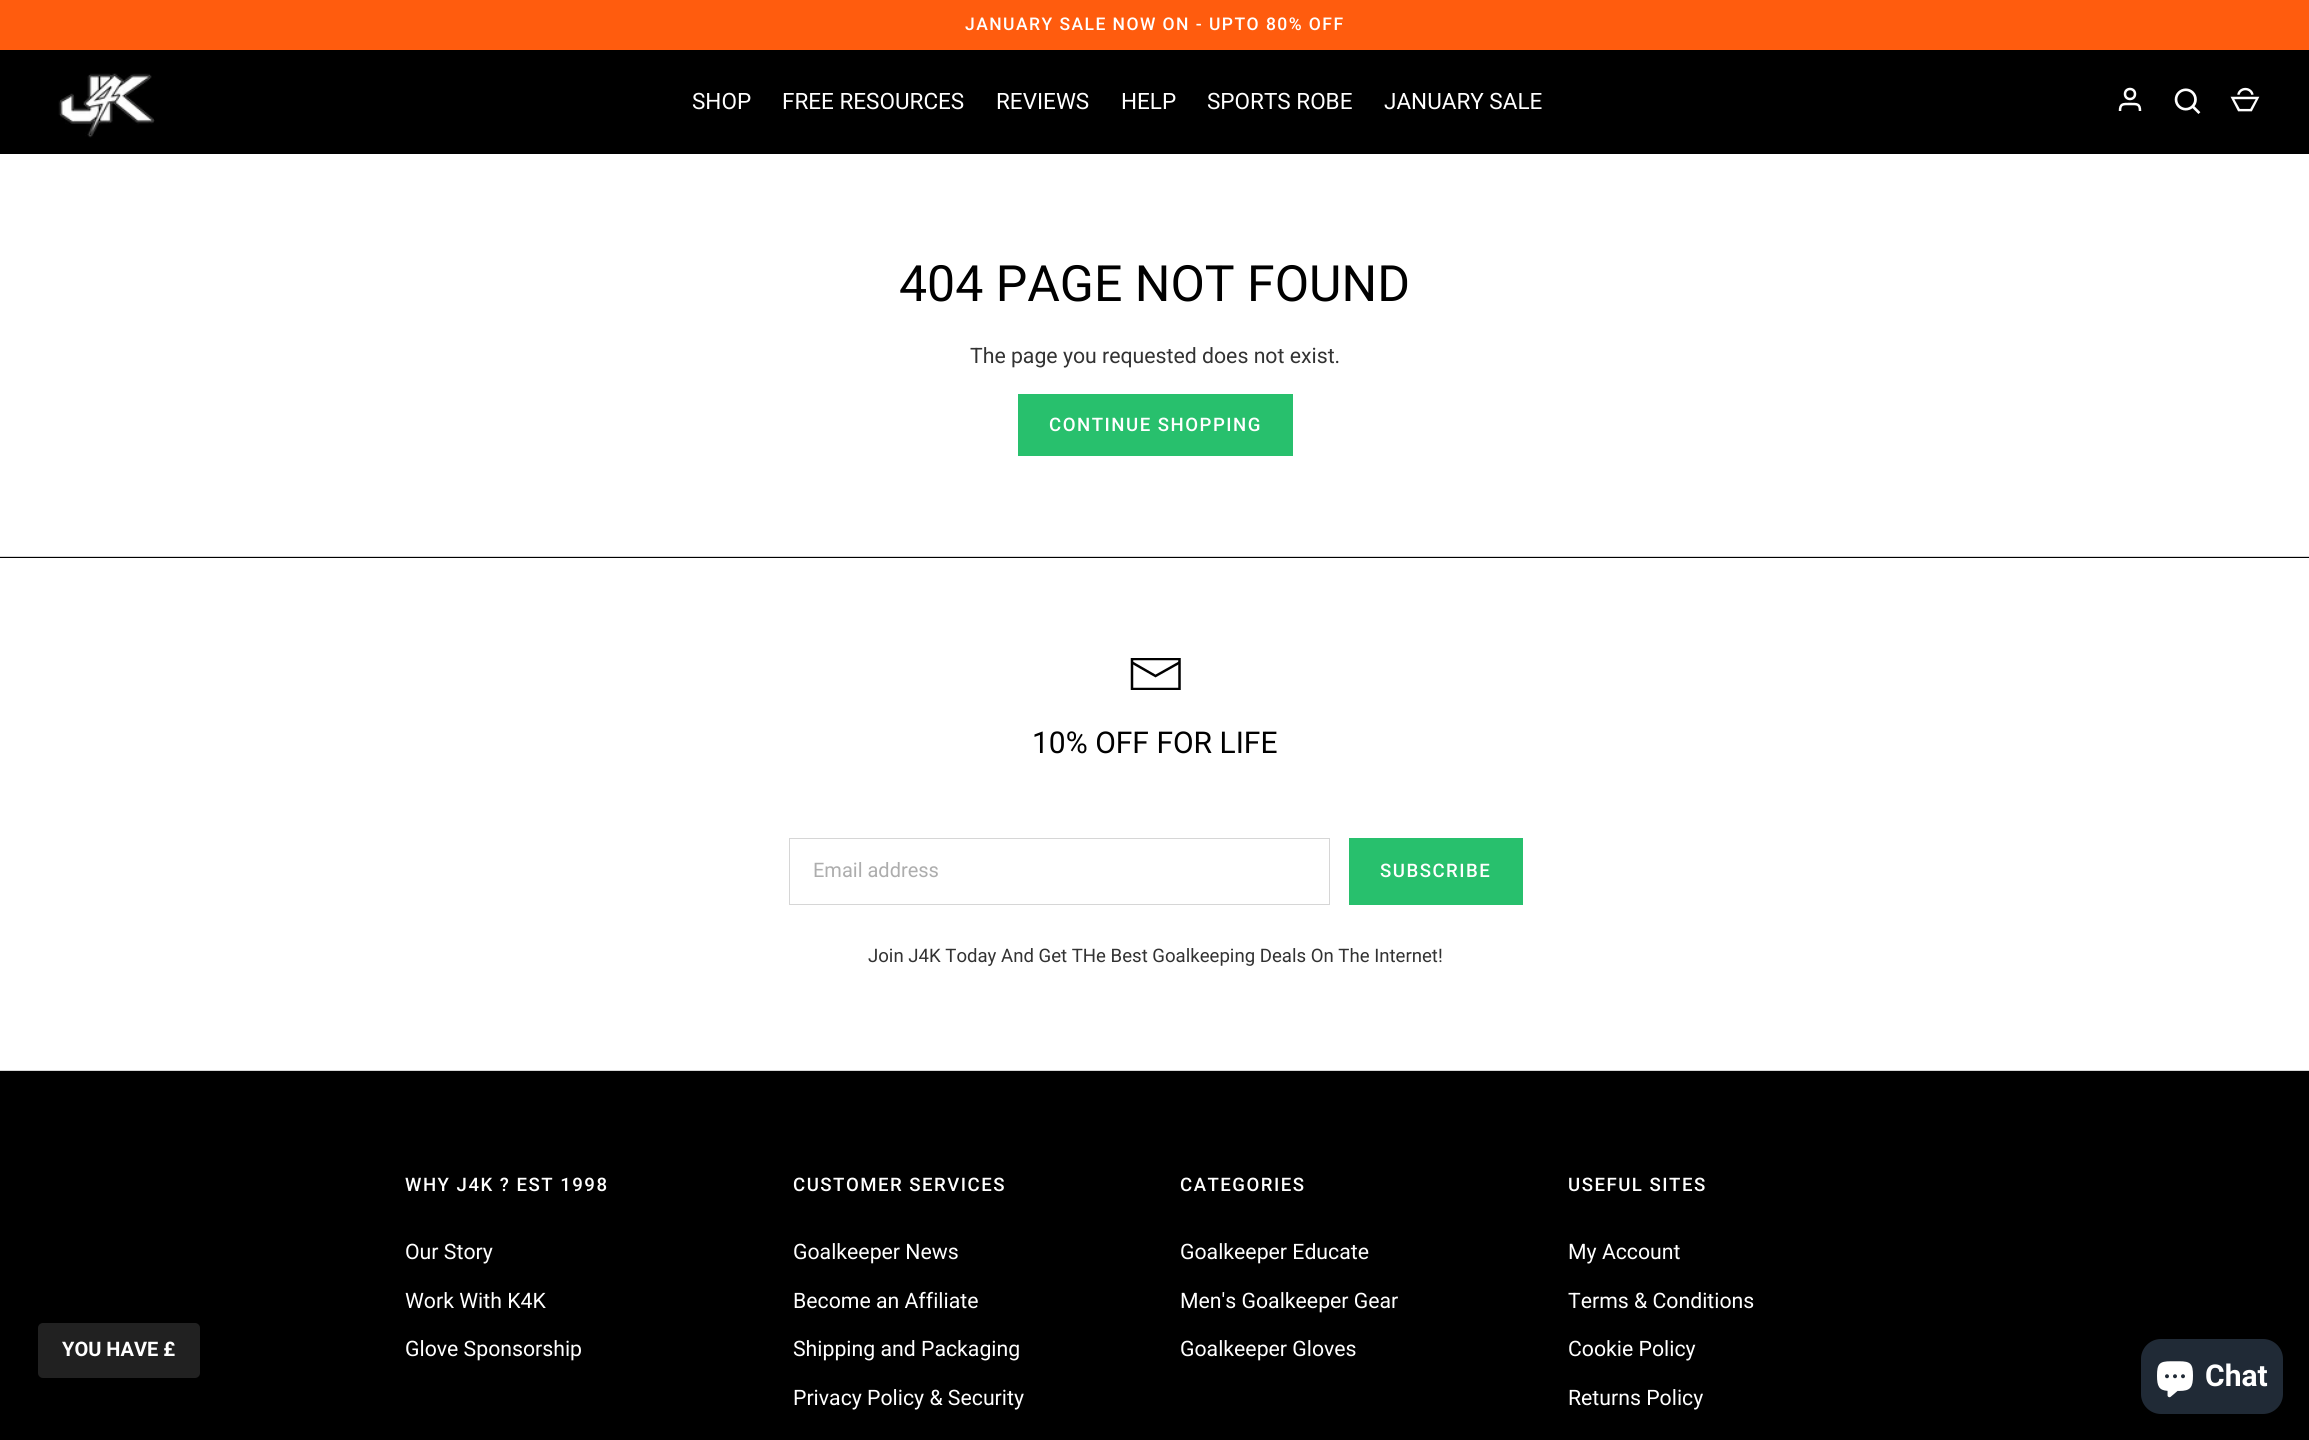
import math
import cairo

surface = cairo.ImageSurface(cairo.FORMAT_RGB24, 2309, 1440)
ctx = cairo.Context(surface)
options = cairo.FontOptions()
options.set_hint_metrics(cairo.HINT_METRICS_OFF)
options.set_hint_style(cairo.HINT_STYLE_NONE)
ctx.set_font_options(options)
ctx.set_miter_limit(4)


def set_color(code):
    ctx.set_source_rgb(*(v / 255 for v in bytes.fromhex(code[-6:])))


def draw_text(x, y, s, family, size, color, bold=False, italic=False):
    ctx.select_font_face(family, cairo.FONT_SLANT_ITALIC if italic else cairo.FONT_SLANT_NORMAL, cairo.FONT_WEIGHT_BOLD if bold else cairo.FONT_WEIGHT_NORMAL)
    ctx.set_font_size(size)
    set_color(color)
    ctx.move_to(x, y)
    ctx.show_text(s)


def draw_spaced(x, y, s, letter, word):
    ctx.move_to(x, y)
    for ch in s:
        ctx.show_text(ch)
        ctx.rel_move_to(letter + word * (ch == ' '), 0)


def fill_rect(x, y, w, h, color):
    set_color(color)
    ctx.rectangle(x, y, w, h)
    ctx.fill()


def rounded_rect(x, y, w, h, r):
    ctx.new_sub_path()
    for i, (u, v) in enumerate([(x + w - r, y + h - r), (x + r, y + h - r), (x + r, y + r), (x + w - r, y + r)]):
        ctx.arc(u, v, r, i * math.pi / 2, (i + 1) * math.pi / 2)
    ctx.close_path()


def draw_image(path, x, y, w, h):
    ctx.save()
    ctx.set_source_surface(cairo.ImageSurface.create_from_png(path), x, y)
    ctx.rectangle(x, y, w, h)
    ctx.fill()
    ctx.restore()


set_color("#ffffff")
ctx.paint()
fill_rect(0, 0, 2309, 50, "#ff5c0e")
ctx.select_font_face("Roboto Medium")
ctx.set_font_size(17.5)
set_color("#ffffff")
draw_spaced(965, 30, "JANUARY SALE NOW ON - UPTO 80% OFF", 1.45, 0)
fill_rect(0, 50, 2309, 104, "#000000")
draw_image("assets/img1.png", 58, 73, 97, 65)
draw_text(692, 109, "SHOP", "Roboto", 22.5, "#ffffff")
draw_text(782, 109, "FREE RESOURCES", "Roboto", 22.5, "#ffffff")
draw_text(996, 109, "REVIEWS", "Roboto", 22.5, "#ffffff")
draw_text(1121, 109, "HELP", "Roboto", 22.5, "#ffffff")
draw_text(1207, 109, "SPORTS ROBE", "Roboto", 22.5, "#ffffff")
draw_text(1384, 109, "JANUARY SALE", "Roboto", 22.5, "#ffffff")
ctx.new_path()
ctx.arc(2130, 94, 5, 0, 2 * math.pi)
ctx.set_line_width(2.5)
ctx.stroke()
ctx.new_path()
ctx.move_to(2140, 111)
ctx.curve_to(2140, 103.5, 2137, 104, 2130, 104)
ctx.curve_to(2123, 104, 2120, 103.5, 2120, 111)
ctx.stroke()
draw_image("assets/img2.png", 2174, 88, 27, 26)
draw_image("assets/img3.png", 2230, 87, 30, 25)
draw_text(899, 301, "404 PAGE NOT FOUND", "Roboto", 50, "#000000")
draw_text(970, 363, "The page you requested does not exist.", "Roboto", 21.25, "#323232")
fill_rect(1018, 394, 275, 62, "#28c06d")
ctx.select_font_face("Roboto Medium")
ctx.set_font_size(18.6)
set_color("#ffffff")
draw_spaced(1049, 431, "CONTINUE SHOPPING", 1.5, 0)
fill_rect(0, 557, 2309, 883, "#000000")
set_color("#212121")
rounded_rect(38, 1323, 162, 55, 5)
ctx.fill()
draw_text(62, 1356, "YOU HAVE £", "Roboto", 20, "#ffffff", bold=True)
fill_rect(0, 556, 2309, 1, "#d6d6d6")
fill_rect(0, 558, 2309, 512, "#ffffff")
fill_rect(0, 1070, 2309, 1, "#d6d6d6")
ctx.save()
ctx.rectangle(1130, 658, 51, 32)
ctx.clip()
ctx.new_path()
ctx.move_to(1132, 659)
ctx.line_to(1132, 689)
ctx.line_to(1179.5, 689)
ctx.line_to(1179.5, 659)
ctx.close_path()
set_color("#000000")
ctx.stroke()
ctx.restore()
ctx.new_path()
ctx.move_to(1132, 662.5)
ctx.line_to(1155.5, 676)
ctx.line_to(1179.5, 662.5)
set_color("#000000")
ctx.stroke()
draw_text(1032, 753, "10% OFF FOR LIFE", "Roboto", 30, "#000000")
ctx.rectangle(789.5, 838.5, 540, 66)
set_color("#d6d6d6")
ctx.set_line_width(1)
ctx.stroke()
draw_text(813, 877, "Email address", "Roboto", 20, "#adadad")
fill_rect(1349, 838, 174, 67, "#28c06d")
ctx.select_font_face("Roboto Medium")
ctx.set_font_size(18.6)
set_color("#ffffff")
draw_spaced(1380, 877, "SUBSCRIBE", 1.5, 0)
draw_text(868, 962, "Join J4K Today And Get THe Best Goalkeeping Deals On The Internet!", "Roboto", 18.6, "#323232")
ctx.select_font_face("Roboto Medium")
set_color("#ffffff")
draw_spaced(405, 1191, "WHY J4K ? EST 1998", 1.5, 0)
draw_text(405, 1259, "Our Story", "Roboto", 21.25, "#ffffff")
draw_text(405, 1308, "Work With K4K", "Roboto", 21.25, "#ffffff")
draw_text(405, 1356, "Glove Sponsorship", "Roboto", 21.25, "#ffffff")
ctx.select_font_face("Roboto Medium")
ctx.set_font_size(18.6)
draw_spaced(793, 1191, "CUSTOMER SERVICES", 1.5, 0)
draw_text(793, 1259, "Goalkeeper News", "Roboto", 21.25, "#ffffff")
draw_text(793, 1308, "Become an Affiliate", "Roboto", 21.25, "#ffffff")
draw_text(793, 1356, "Shipping and Packaging", "Roboto", 21.25, "#ffffff")
draw_text(793, 1405, "Privacy Policy & Security", "Roboto", 21.25, "#ffffff")
ctx.select_font_face("Roboto Medium")
ctx.set_font_size(18.6)
draw_spaced(1180, 1191, "CATEGORIES", 1.5, 0)
draw_text(1180, 1259, "Goalkeeper Educate", "Roboto", 21.25, "#ffffff")
draw_text(1180, 1308, "Men's Goalkeeper Gear", "Roboto", 21.25, "#ffffff")
draw_text(1180, 1356, "Goalkeeper Gloves", "Roboto", 21.25, "#ffffff")
ctx.select_font_face("Roboto Medium")
ctx.set_font_size(18.6)
draw_spaced(1568, 1191, "USEFUL SITES", 1.5, 0)
draw_text(1568, 1259, "My Account", "Roboto", 21.25, "#ffffff")
draw_text(1568, 1308, "Terms & Conditions", "Roboto", 21.25, "#ffffff")
draw_text(1568, 1356, "Cookie Policy", "Roboto", 21.25, "#ffffff")
draw_text(1568, 1405, "Returns Policy", "Roboto", 21.25, "#ffffff")
set_color("#202a36")
rounded_rect(2141, 1339, 142, 75, 20)
ctx.fill()
draw_image("assets/img4.png", 2157, 1361, 36, 37)
draw_text(2205, 1386, "Chat", "Roboto", 30, "#ffffff", bold=True)
surface.write_to_png("output.png")
